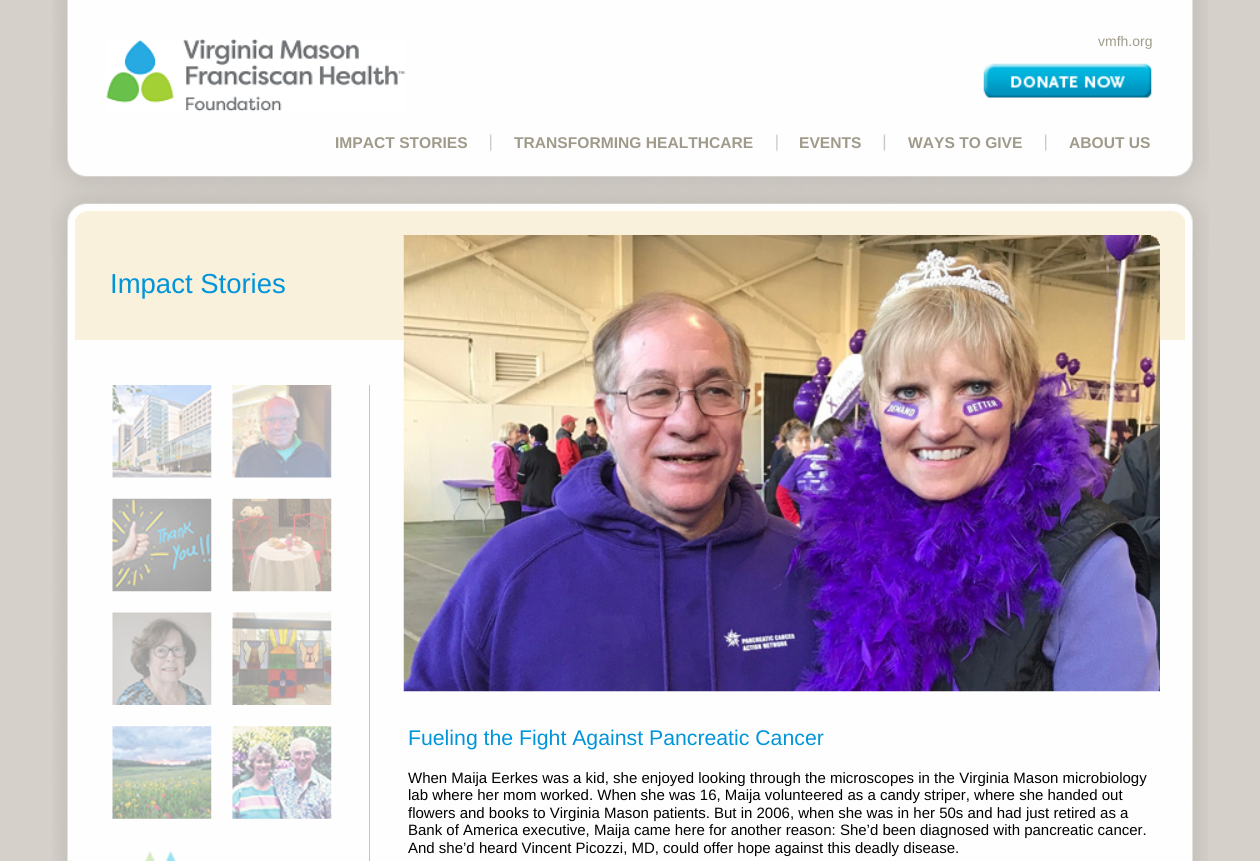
import math
import cairo

surface = cairo.ImageSurface(cairo.FORMAT_RGB24, 1260, 861)
ctx = cairo.Context(surface)
options = cairo.FontOptions()
options.set_hint_metrics(cairo.HINT_METRICS_OFF)
options.set_hint_style(cairo.HINT_STYLE_NONE)
ctx.set_font_options(options)
ctx.set_miter_limit(4)


def set_color(code):
    ctx.set_source_rgb(*(v / 255 for v in bytes.fromhex(code[-6:])))


def draw_text(x, y, s, family, size, color, bold=False, italic=False):
    ctx.select_font_face(family, cairo.FONT_SLANT_ITALIC if italic else cairo.FONT_SLANT_NORMAL, cairo.FONT_WEIGHT_BOLD if bold else cairo.FONT_WEIGHT_NORMAL)
    ctx.set_font_size(size)
    set_color(color)
    ctx.move_to(x, y)
    ctx.show_text(s)


def fill_rect(x, y, w, h, color):
    set_color(color)
    ctx.rectangle(x, y, w, h)
    ctx.fill()


def draw_image(path, x, y, w, h):
    ctx.save()
    ctx.set_source_surface(cairo.ImageSurface.create_from_png(path), x, y)
    ctx.rectangle(x, y, w, h)
    ctx.fill()
    ctx.restore()


set_color("#d5d0ca")
ctx.paint()
draw_image("assets/img1.png", 51, 127, 1158, 63)
draw_image("assets/img2.png", 52, 0, 1156, 149)
draw_image("assets/img3.png", 106, 38, 300, 74)
draw_text(1098, 46, "vmfh.org", "Liberation Sans", 14, "#9f9a8a")
draw_image("assets/img4.png", 983, 63, 169, 35)
draw_text(335, 148, "IMPACT STORIES", "Liberation Sans", 15.6, "#9f9a8a", bold=True)
draw_image("assets/img5.png", 490, 133, 2, 19)
draw_text(514, 148, "TRANSFORMING HEALTHCARE", "Liberation Sans", 15.6, "#9f9a8a", bold=True)
draw_image("assets/img6.png", 776, 134, 2, 18)
draw_text(799, 148, "EVENTS", "Liberation Sans", 15.6, "#9f9a8a", bold=True)
draw_image("assets/img7.png", 883, 133, 3, 19)
draw_text(908, 148, "WAYS TO GIVE", "Liberation Sans", 15.6, "#9f9a8a", bold=True)
draw_image("assets/img5.png", 1045, 133, 2, 19)
draw_text(1069, 148, "ABOUT US", "Liberation Sans", 15.6, "#9f9a8a", bold=True)
draw_image("assets/img8.png", 52, 252, 1156, 609)
draw_image("assets/img9.png", 51, 190, 1158, 62)
draw_image("assets/img10.png", 75, 211, 11, 10)
fill_rect(86, 211, 1088, 10, "#f9f1db")
draw_image("assets/img11.png", 1174, 211, 11, 10)
fill_rect(75, 221, 1110, 119, "#f9f1db")
draw_image("assets/img12.png", 403, 235, 757, 457)
draw_image("assets/img13.png", 1151, 235, 9, 9)
draw_text(110, 293, "Impact Stories", "Liberation Sans", 27.5, "#0094db")
draw_image("assets/img14.png", 112, 385, 100, 93)
draw_image("assets/img15.png", 232, 385, 100, 93)
draw_image("assets/img16.png", 112, 498, 100, 94)
draw_image("assets/img17.png", 232, 498, 100, 94)
draw_image("assets/img18.png", 112, 612, 100, 93)
draw_image("assets/img19.png", 232, 612, 100, 93)
draw_image("assets/img20.png", 112, 726, 100, 93)
draw_image("assets/img21.png", 232, 726, 100, 93)
draw_image("assets/img22.png", 145, 851, 31, 10)
fill_rect(369, 385, 1, 476, "#c5c2bf")
draw_text(408, 745, "Fueling the Fight Against Pancreatic Cancer", "Liberation Sans", 21.25, "#0094db")
draw_text(408, 783, "When Maija Eerkes was a kid, she enjoyed looking through the microscopes in the Virginia Mason microbiology", "Liberation Sans", 15, "#000000")
draw_text(408, 800, "lab where her mom worked. When she was 16, Maija volunteered as a candy striper, where she handed out", "Liberation Sans", 15, "#000000")
draw_text(408, 818, "flowers and books to Virginia Mason patients. But in 2006, when she was in her 50s and had just retired as a", "Liberation Sans", 15, "#000000")
draw_text(408, 835, "Bank of America executive, Maija came here for another reason: She’d been diagnosed with pancreatic cancer.", "Liberation Sans", 15, "#000000")
draw_text(408, 853, "And she’d heard Vincent Picozzi, MD, could offer hope against this deadly disease.", "Liberation Sans", 15, "#000000")
surface.write_to_png("output.png")
